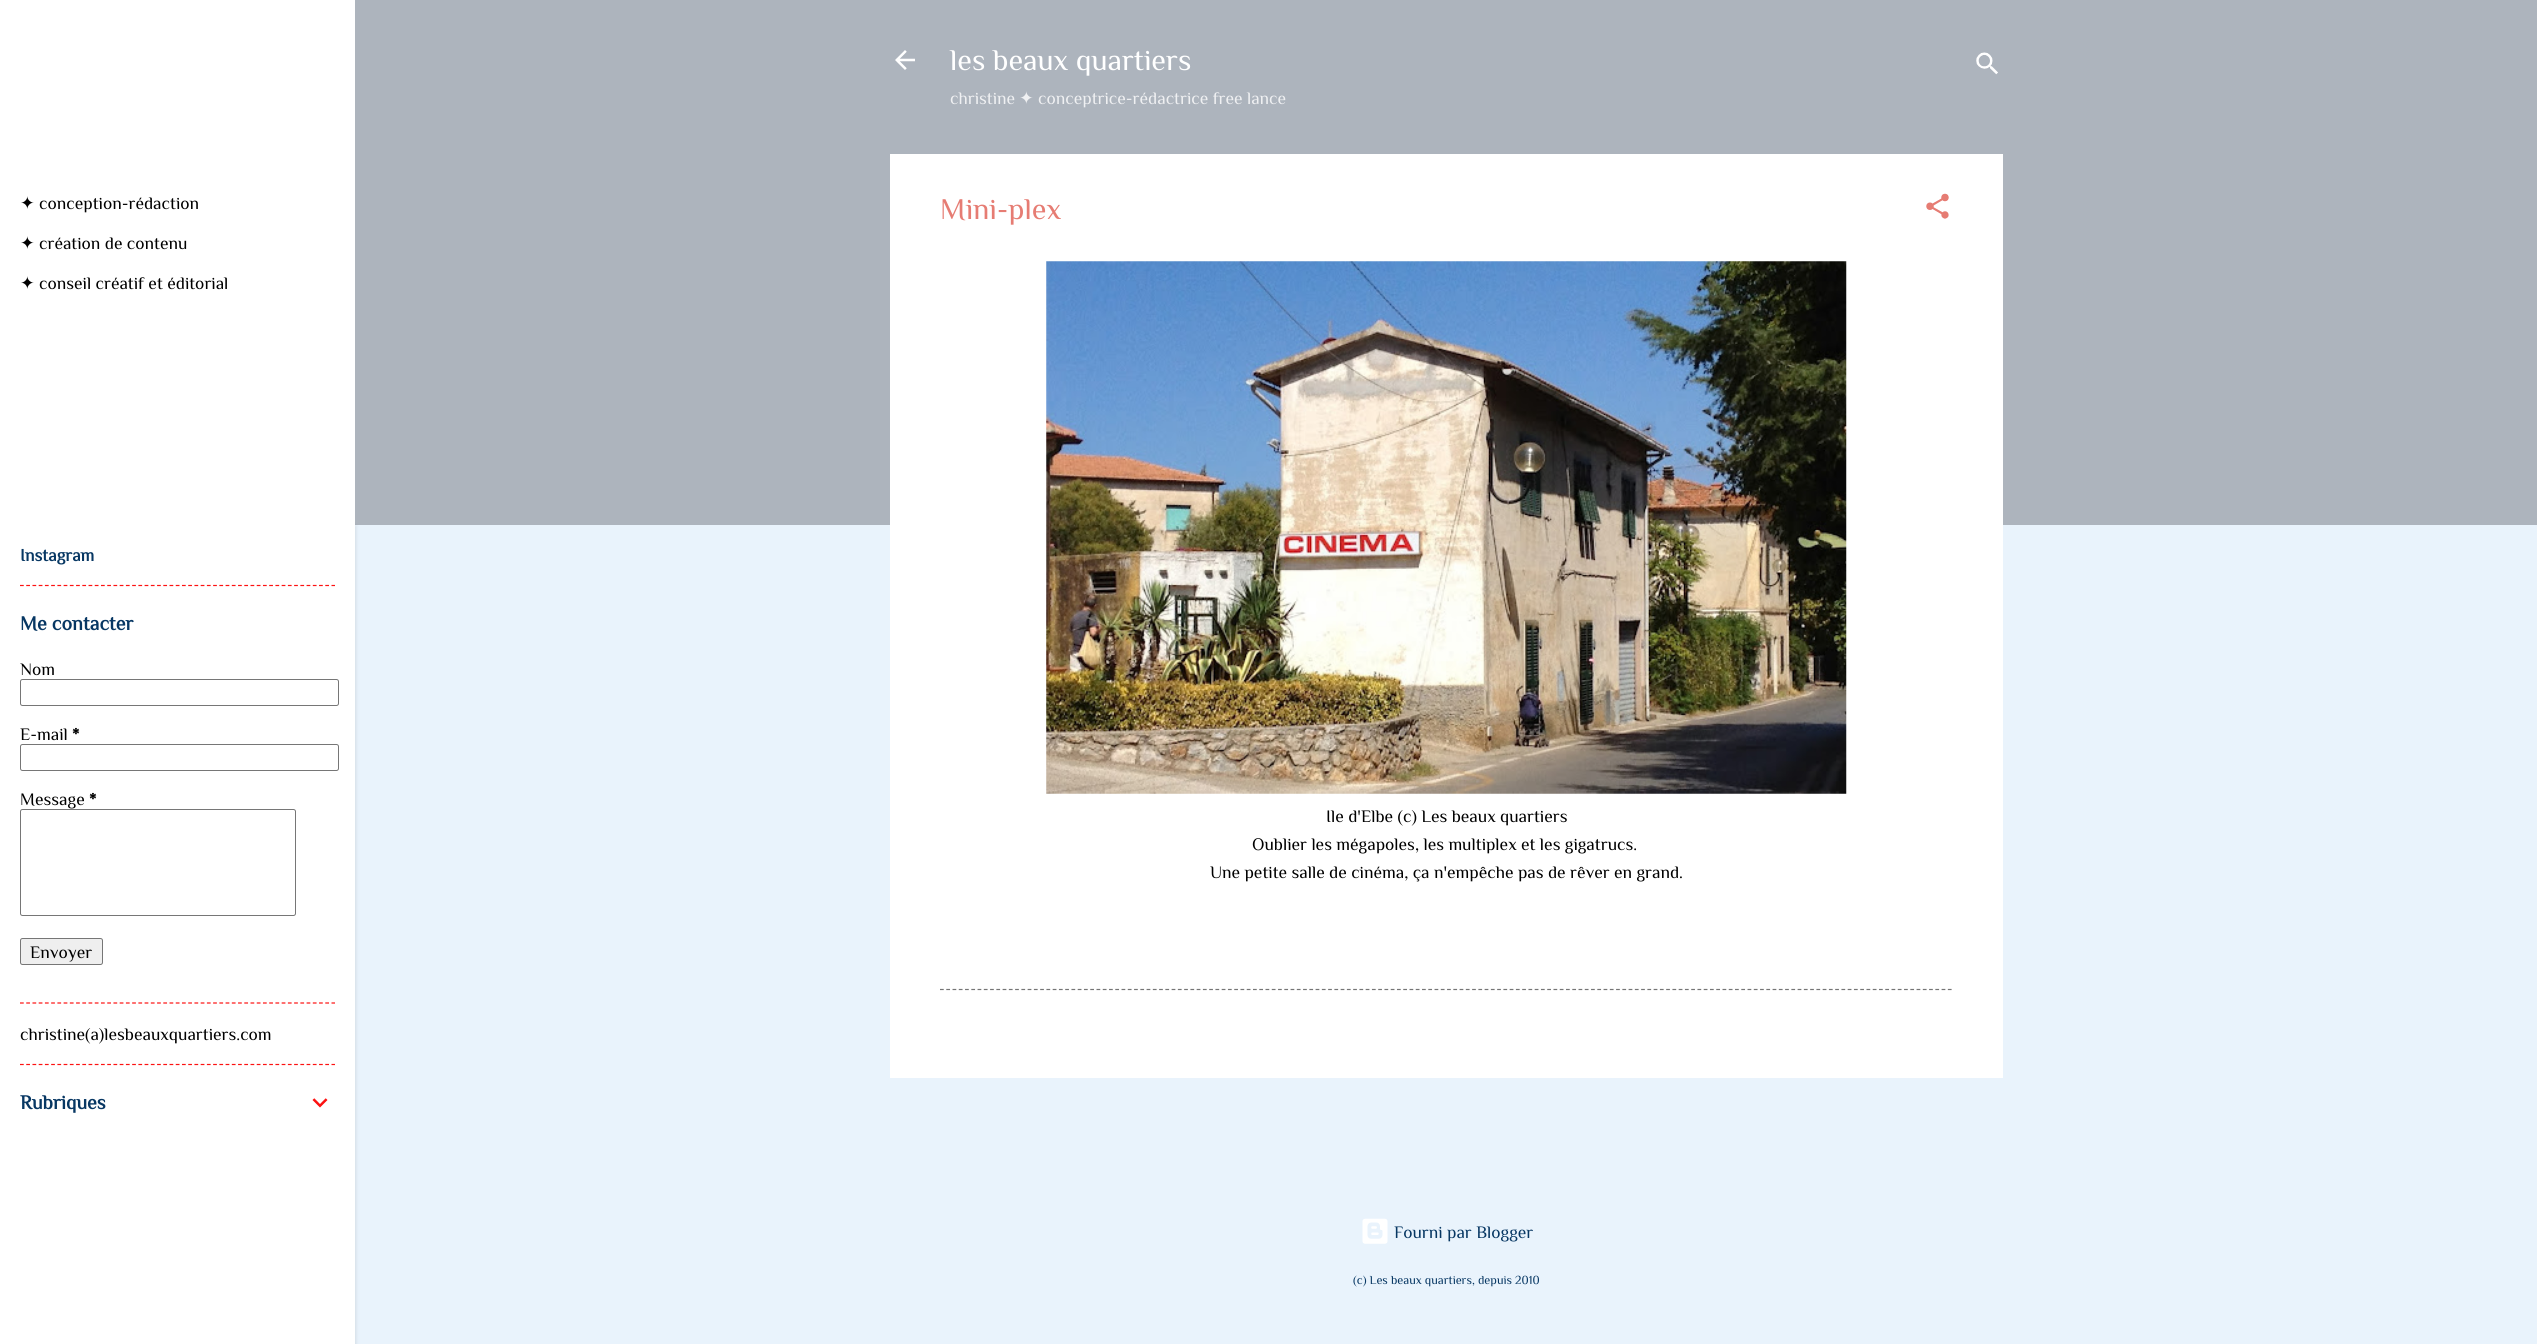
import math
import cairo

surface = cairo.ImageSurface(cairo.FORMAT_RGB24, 2537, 1344)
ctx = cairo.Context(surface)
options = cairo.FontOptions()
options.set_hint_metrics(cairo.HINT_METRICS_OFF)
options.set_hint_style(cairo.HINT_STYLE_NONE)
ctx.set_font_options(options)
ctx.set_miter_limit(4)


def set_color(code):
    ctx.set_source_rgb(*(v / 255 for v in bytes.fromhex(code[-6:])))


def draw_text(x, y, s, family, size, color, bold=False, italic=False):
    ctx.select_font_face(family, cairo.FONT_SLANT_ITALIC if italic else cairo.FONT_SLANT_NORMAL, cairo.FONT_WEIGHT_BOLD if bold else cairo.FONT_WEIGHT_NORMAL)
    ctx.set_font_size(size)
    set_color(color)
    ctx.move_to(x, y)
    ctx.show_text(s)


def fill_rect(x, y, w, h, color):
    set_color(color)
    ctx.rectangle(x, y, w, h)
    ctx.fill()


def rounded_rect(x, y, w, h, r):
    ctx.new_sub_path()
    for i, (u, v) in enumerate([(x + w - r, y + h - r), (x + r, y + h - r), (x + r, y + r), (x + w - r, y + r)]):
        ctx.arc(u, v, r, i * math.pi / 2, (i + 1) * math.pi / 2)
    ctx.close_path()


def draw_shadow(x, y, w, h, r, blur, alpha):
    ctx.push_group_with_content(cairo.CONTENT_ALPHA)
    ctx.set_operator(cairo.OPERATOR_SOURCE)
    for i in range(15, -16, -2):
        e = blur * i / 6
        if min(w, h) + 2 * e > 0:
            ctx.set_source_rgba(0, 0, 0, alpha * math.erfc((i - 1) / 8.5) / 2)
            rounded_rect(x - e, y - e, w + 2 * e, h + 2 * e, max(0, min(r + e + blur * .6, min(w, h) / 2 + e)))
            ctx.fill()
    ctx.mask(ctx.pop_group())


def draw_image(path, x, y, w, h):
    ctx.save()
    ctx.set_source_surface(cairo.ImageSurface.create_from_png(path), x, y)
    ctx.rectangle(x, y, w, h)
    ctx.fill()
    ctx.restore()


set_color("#e9f3fc")
ctx.paint()
fill_rect(355, 0, 2182, 525, "#adb4bd")
set_color("#000000")
draw_shadow(1, 526, 355, 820, 0, 2, 0.1)
fill_rect(0, 0, 355, 1344, "#ffffff")
draw_text(20, 209, "✦", "DejaVu Sans", 17.5, "#000000")
draw_text(39, 209, "conception-rédaction", "Philosopher", 17.5, "#000000")
draw_text(20, 249, "✦", "DejaVu Sans", 17.5, "#000000")
draw_text(39, 249, "création de contenu", "Philosopher", 17.5, "#000000")
draw_text(20, 289, "✦", "DejaVu Sans", 17.5, "#000000")
draw_text(39, 289, "conseil créatif et éditorial", "Philosopher", 17.5, "#000000")
draw_text(20, 561, "Instagram", "Philosopher", 17.5, "#073763", bold=True)
ctx.new_path()
ctx.move_to(20, 585.5)
ctx.line_to(335, 585.5)
set_color("#fc1212")
ctx.set_line_width(1.2)
ctx.set_dash([3.75, 2.48])
ctx.stroke()
draw_text(20, 630, "Me contacter", "Philosopher", 20, "#073763", bold=True)
draw_text(20, 675, "Nom", "Philosopher", 17.5, "#000000")
rounded_rect(20.5, 679.5, 318, 26, 2)
set_color("#767676")
ctx.set_line_width(1)
ctx.set_dash([])
ctx.stroke()
draw_text(20, 740, "E-mail", "Philosopher", 17.5, "#000000")
draw_text(72, 740, "*", "Philosopher", 17.5, "#000000", bold=True)
rounded_rect(20.5, 744.5, 318, 26, 2)
set_color("#767676")
ctx.stroke()
draw_text(20, 805, "Message", "Philosopher", 17.5, "#000000")
draw_text(89, 805, "*", "Philosopher", 17.5, "#000000", bold=True)
rounded_rect(20.5, 809.5, 275, 106, 2)
set_color("#767676")
ctx.stroke()
set_color("#efefef")
rounded_rect(20.5, 938.5, 82, 26, 2)
ctx.fill_preserve()
set_color("#767676")
ctx.stroke()
draw_text(30, 958, "Envoyer", "Philosopher", 17.5, "#000000")
ctx.new_path()
ctx.move_to(20, 1003)
ctx.line_to(335, 1003)
set_color("#fc1212")
ctx.set_line_width(1.2)
ctx.set_dash([3.75, 2.48])
ctx.stroke()
draw_text(20, 1040, "christine(a)lesbeauxquartiers.com", "Philosopher", 17.5, "#000000")
ctx.new_path()
ctx.move_to(20, 1064.5)
ctx.line_to(335, 1064.5)
set_color("#fc1212")
ctx.stroke()
draw_text(20, 1109, "Rubriques", "Philosopher", 20, "#073763", bold=True)
draw_image("assets/img1.png", 312, 1098, 16, 10)
draw_image("assets/img2.png", 895, 50, 20, 20)
draw_text(950, 70, "les beaux quartiers", "Philosopher", 30, "#ffffff")
draw_text(950, 104, "christine", "Philosopher", 17.5, "#eff0f2")
draw_text(1019, 104, "✦", "DejaVu Sans", 17.5, "#eff0f2")
draw_text(1038, 104, "conceptrice-rédactrice free lance", "Philosopher", 17.5, "#eff0f2")
draw_image("assets/img3.png", 1976, 52, 22, 23)
fill_rect(890, 154, 1113, 924, "#ffffff")
draw_text(940, 219, "Mini-plex", "Philosopher", 30, "#e67c73")
draw_image("assets/img4.png", 1926, 193, 23, 26)
draw_image("assets/img5.png", 1046, 261, 801, 533)
draw_text(1326, 822, "Ile d'Elbe (c) Les beaux quartiers", "Philosopher", 17.5, "#000000")
draw_text(1252, 850, "Oublier les mégapoles, les multiplex et les gigatrucs.", "Philosopher", 17.5, "#000000")
draw_text(1210, 878, "Une petite salle de cinéma, ça n'empêche pas de rêver en grand.", "Philosopher", 17.5, "#000000")
ctx.new_path()
ctx.move_to(940, 989.5)
ctx.line_to(1952.5, 989.5)
set_color("#757575")
ctx.set_dash([3.75, 2.51])
ctx.stroke()
draw_image("assets/img6.png", 1362, 1218, 26, 26)
draw_text(1394, 1238, "Fourni par Blogger", "Philosopher", 17.5, "#073763")
draw_text(1353, 1284, "(c) Les beaux quartiers, depuis 2010", "Philosopher", 12.25, "#073763")
surface.write_to_png("output.png")
